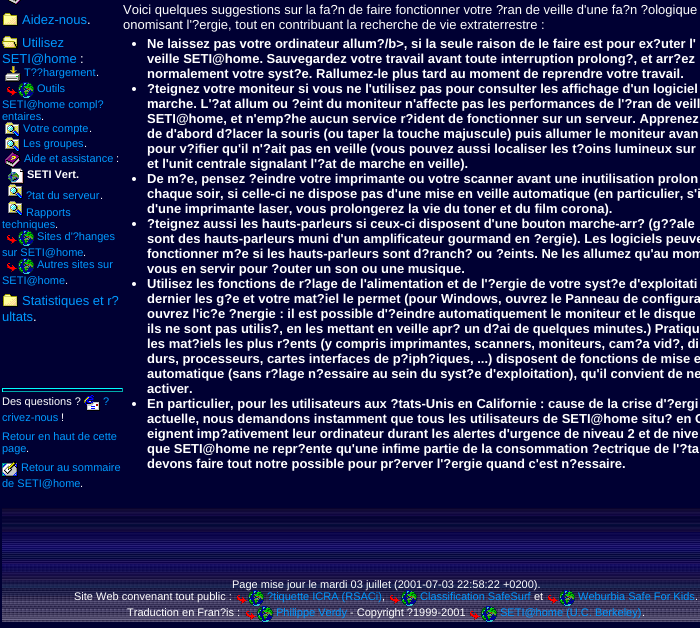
import math
import cairo

surface = cairo.ImageSurface(cairo.FORMAT_RGB24, 700, 628)
ctx = cairo.Context(surface)
options = cairo.FontOptions()
options.set_hint_metrics(cairo.HINT_METRICS_OFF)
options.set_hint_style(cairo.HINT_STYLE_NONE)
ctx.set_font_options(options)
ctx.set_miter_limit(4)


def set_color(code):
    ctx.set_source_rgb(*(v / 255 for v in bytes.fromhex(code[-6:])))


def draw_text(x, y, s, family, size, color, bold=False, italic=False):
    ctx.select_font_face(family, cairo.FONT_SLANT_ITALIC if italic else cairo.FONT_SLANT_NORMAL, cairo.FONT_WEIGHT_BOLD if bold else cairo.FONT_WEIGHT_NORMAL)
    ctx.set_font_size(size)
    set_color(color)
    ctx.move_to(x, y)
    ctx.show_text(s)


def fill_rect(x, y, w, h, color):
    set_color(color)
    ctx.rectangle(x, y, w, h)
    ctx.fill()


def draw_image(path, x, y, w, h):
    ctx.save()
    ctx.set_source_surface(cairo.ImageSurface.create_from_png(path), x, y)
    ctx.rectangle(x, y, w, h)
    ctx.fill()
    ctx.restore()


set_color("#000033")
ctx.paint()
draw_image("assets/img1.png", 8, 0, 13, 5)
draw_image("assets/img2.png", 2, 13, 16, 13)
draw_text(22, 24, "Aidez-nous", "Liberation Sans", 13, "#0099ff")
draw_text(87, 24, ".", "Liberation Sans", 13, "#ffffff")
draw_image("assets/img3.png", 2, 36, 16, 13)
draw_text(22, 47, "Utilisez", "Liberation Sans", 13, "#0099ff")
draw_text(2, 63, "SETI@home", "Liberation Sans", 13, "#0099ff")
draw_text(80, 63, ":", "Liberation Sans", 13, "#ffffff")
draw_image("assets/img4.png", 5, 66, 16, 16)
draw_text(24, 76, "T??hargement", "Liberation Sans", 11, "#0099ff")
draw_text(96, 76, ".", "Liberation Sans", 11, "#ffffff")
draw_image("assets/img5.png", 7, 82, 27, 16)
draw_text(37, 92, "Outils", "Liberation Sans", 11, "#0099ff")
draw_text(2, 108, "SETI@home compl?", "Liberation Sans", 11, "#0099ff")
draw_text(2, 120, "entaires", "Liberation Sans", 11, "#0099ff")
draw_text(41, 120, ".", "Liberation Sans", 11, "#ffffff")
draw_image("assets/img6.png", 5, 122, 15, 15)
draw_text(23, 132, "Votre compte", "Liberation Sans", 11, "#0099ff")
draw_text(89, 132, ".", "Liberation Sans", 11, "#ffffff")
draw_image("assets/img6.png", 5, 137, 15, 15)
draw_text(23, 147, "Les groupes", "Liberation Sans", 11, "#0099ff")
draw_text(84, 147, ".", "Liberation Sans", 11, "#ffffff")
draw_image("assets/img7.png", 5, 152, 16, 16)
draw_text(24, 162, "Aide et assistance", "Liberation Sans", 11, "#0099ff")
draw_text(116, 162, ":", "Liberation Sans", 11, "#ffffff")
draw_image("assets/img8.png", 8, 168, 16, 16)
draw_text(27, 178, "SETI Vert.", "Liberation Sans", 11, "#ffffff", bold=True)
draw_image("assets/img6.png", 8, 184, 15, 15)
draw_text(26, 199, "?tat du serveur", "Liberation Sans", 11, "#0099ff")
draw_text(100, 199, ".", "Liberation Sans", 11, "#ffffff")
draw_image("assets/img6.png", 8, 201, 15, 15)
draw_text(26, 216, "Rapports", "Liberation Sans", 11, "#0099ff")
draw_text(2, 228, "techniques", "Liberation Sans", 11, "#0099ff")
draw_text(55, 228, ".", "Liberation Sans", 11, "#ffffff")
draw_image("assets/img5.png", 7, 230, 27, 16)
draw_text(37, 240, "Sites d'?hanges", "Liberation Sans", 11, "#0099ff")
draw_text(2, 256, "sur SETI@home", "Liberation Sans", 11, "#0099ff")
draw_text(83, 256, ".", "Liberation Sans", 11, "#ffffff")
draw_image("assets/img5.png", 7, 258, 27, 16)
draw_text(37, 268, "Autres sites sur", "Liberation Sans", 11, "#0099ff")
draw_text(2, 284, "SETI@home", "Liberation Sans", 11, "#0099ff")
draw_text(65, 284, ".", "Liberation Sans", 11, "#ffffff")
draw_image("assets/img2.png", 2, 294, 16, 13)
draw_text(22, 305, "Statistiques et r?", "Liberation Sans", 13, "#0099ff")
draw_text(2, 321, "ultats", "Liberation Sans", 13, "#0099ff")
draw_text(33, 321, ".", "Liberation Sans", 13, "#ffffff")
draw_text(123, 14, "Voici quelques suggestions sur la fa?n de faire fonctionner votre ?ran de veille d'une fa?n ?ologique", "Liberation Sans", 13, "#ffffff")
draw_text(123, 29, "onomisant l'?ergie, tout en contribuant la recherche de vie extraterrestre :", "Liberation Sans", 13, "#ffffff")
ctx.new_path()
ctx.arc(134, 44, 2, 0, 2 * math.pi)
ctx.fill()
draw_text(147, 48, "Ne laissez pas votre ordinateur allum?/b>, si la seule raison de le faire est pour ex?uter l'", "Liberation Sans", 13, "#ffffff", bold=True)
draw_text(147, 63, "veille SETI@home. Sauvegardez votre travail avant toute interruption prolong?, et arr?ez", "Liberation Sans", 13, "#ffffff", bold=True)
draw_text(147, 78, "normalement votre syst?e. Rallumez-le plus tard au moment de reprendre votre travail.", "Liberation Sans", 13, "#ffffff", bold=True)
ctx.new_path()
ctx.arc(134, 89, 2, 0, 2 * math.pi)
ctx.fill()
draw_text(147, 93, "?teignez votre moniteur si vous ne l'utilisez pas pour consulter les affichage d'un logiciel", "Liberation Sans", 13, "#ffffff", bold=True)
draw_text(147, 108, "marche. L'?at allum ou ?eint du moniteur n'affecte pas les performances de l'?ran de veill", "Liberation Sans", 13, "#ffffff", bold=True)
draw_text(147, 123, "SETI@home, et n'emp?he aucun service r?ident de fonctionner sur un serveur. Apprenez", "Liberation Sans", 13, "#ffffff", bold=True)
draw_text(147, 138, "de d'abord d?lacer la souris (ou taper la touche majuscule) puis allumer le moniteur avan", "Liberation Sans", 13, "#ffffff", bold=True)
draw_text(147, 153, "pour v?ifier qu'il n'?ait pas en veille (vous pouvez aussi localiser les t?oins lumineux sur", "Liberation Sans", 13, "#ffffff", bold=True)
draw_text(147, 168, "et l'unit centrale signalant l'?at de marche en veille).", "Liberation Sans", 13, "#ffffff", bold=True)
ctx.new_path()
ctx.arc(134, 179, 2, 0, 2 * math.pi)
ctx.fill()
draw_text(147, 183, "De m?e, pensez ?eindre votre imprimante ou votre scanner avant une inutilisation prolon", "Liberation Sans", 13, "#ffffff", bold=True)
draw_text(147, 198, "chaque soir, si celle-ci ne dispose pas d'une mise en veille automatique (en particulier, s'i", "Liberation Sans", 13, "#ffffff", bold=True)
draw_text(147, 213, "d'une imprimante laser, vous prolongerez la vie du toner et du film corona).", "Liberation Sans", 13, "#ffffff", bold=True)
ctx.new_path()
ctx.arc(134, 224, 2, 0, 2 * math.pi)
ctx.fill()
draw_text(147, 228, "?teignez aussi les hauts-parleurs si ceux-ci disposent d'une bouton marche-arr? (g??ale", "Liberation Sans", 13, "#ffffff", bold=True)
draw_text(147, 243, "sont des hauts-parleurs muni d'un amplificateur gourmand en ?ergie). Les logiciels peuve", "Liberation Sans", 13, "#ffffff", bold=True)
draw_text(147, 258, "fonctionner m?e si les hauts-parleurs sont d?ranch? ou ?eints. Ne les allumez qu'au mom", "Liberation Sans", 13, "#ffffff", bold=True)
draw_text(147, 273, "vous en servir pour ?outer un son ou une musique.", "Liberation Sans", 13, "#ffffff", bold=True)
ctx.new_path()
ctx.arc(134, 284, 2, 0, 2 * math.pi)
ctx.fill()
draw_text(147, 288, "Utilisez les fonctions de r?lage de l'alimentation et de l'?ergie de votre syst?e d'exploitati", "Liberation Sans", 13, "#ffffff", bold=True)
draw_text(147, 303, "dernier les g?e et votre mat?iel le permet (pour Windows, ouvrez le Panneau de configura", "Liberation Sans", 13, "#ffffff", bold=True)
draw_text(147, 318, "ouvrez l'ic?e ?nergie : il est possible d'?eindre automatiquement le moniteur et le disque", "Liberation Sans", 13, "#ffffff", bold=True)
draw_text(147, 333, "ils ne sont pas utilis?, en les mettant en veille apr? un d?ai de quelques minutes.) Pratiqu", "Liberation Sans", 13, "#ffffff", bold=True)
draw_text(147, 348, "les mat?iels les plus r?ents (y compris imprimantes, scanners, moniteurs, cam?a vid?, di", "Liberation Sans", 13, "#ffffff", bold=True)
draw_text(147, 363, "durs, processeurs, cartes interfaces de p?iph?iques, ...) disposent de fonctions de mise e", "Liberation Sans", 13, "#ffffff", bold=True)
draw_text(147, 378, "automatique (sans r?lage n?essaire au sein du syst?e d'exploitation), qu'il convient de ne", "Liberation Sans", 13, "#ffffff", bold=True)
draw_text(147, 393, "activer.", "Liberation Sans", 13, "#ffffff", bold=True)
ctx.new_path()
ctx.arc(134, 404, 2, 0, 2 * math.pi)
ctx.fill()
draw_text(147, 408, "En particulier, pour les utilisateurs aux ?tats-Unis en Californie : cause de la crise d'?ergi", "Liberation Sans", 13, "#ffffff", bold=True)
draw_text(147, 423, "actuelle, nous demandons instamment que tous les utilisateurs de SETI@home situ? en C", "Liberation Sans", 13, "#ffffff", bold=True)
draw_text(147, 438, "eignent imp?ativement leur ordinateur durant les alertes d'urgence de niveau 2 et de nive", "Liberation Sans", 13, "#ffffff", bold=True)
draw_text(147, 453, "que SETI@home ne repr?ente qu'une infime partie de la consommation ?ectrique de l'?ta", "Liberation Sans", 13, "#ffffff", bold=True)
draw_text(147, 468, "devons faire tout notre possible pour pr?erver l'?ergie quand c'est n?essaire.", "Liberation Sans", 13, "#ffffff", bold=True)
fill_rect(2, 388, 121, 1, "#00ffff")
fill_rect(122, 388, 1, 4, "#00aaaa")
fill_rect(2, 391, 121, 1, "#00aaaa")
fill_rect(2, 388, 1, 4, "#00ffff")
draw_text(2, 405, "Des questions ?", "Liberation Sans", 11, "#ffffff")
draw_image("assets/img9.png", 84, 395, 16, 16)
draw_text(103, 405, "?", "Liberation Sans", 11, "#0099ff")
draw_text(2, 421, "crivez-nous", "Liberation Sans", 11, "#0099ff")
draw_text(61, 421, "!", "Liberation Sans", 11, "#ffffff")
draw_text(2, 440, "Retour en haut de cette", "Liberation Sans", 11, "#0099ff")
draw_text(2, 452, "page", "Liberation Sans", 11, "#0099ff")
draw_text(26, 452, ".", "Liberation Sans", 11, "#ffffff")
draw_image("assets/img10.png", 2, 461, 16, 16)
draw_text(21, 471, "Retour au sommaire", "Liberation Sans", 11, "#0099ff")
draw_text(2, 487, "de SETI@home", "Liberation Sans", 11, "#0099ff")
draw_text(80, 487, ".", "Liberation Sans", 11, "#ffffff")
draw_image("assets/img11.png", 2, 508, 698, 114)
draw_text(232, 588, "Page mise jour le mardi 03 juillet (2001-07-03 22:58:22 +0200).", "Liberation Sans", 11, "#ffffff")
draw_text(74, 600, "Site Web convenant tout public :", "Liberation Sans", 11, "#ffffff")
draw_image("assets/img12.png", 237, 590, 27, 16)
draw_text(267, 600, "?tiquette ICRA (RSACi)", "Liberation Sans", 11, "#0099ff")
draw_text(382, 600, ",", "Liberation Sans", 11, "#ffffff")
draw_image("assets/img13.png", 390, 590, 27, 16)
draw_text(420, 600, "Classification SafeSurf", "Liberation Sans", 11, "#0099ff")
draw_text(534, 600, "et", "Liberation Sans", 11, "#ffffff")
draw_image("assets/img14.png", 548, 590, 27, 16)
draw_text(578, 600, "Weburbia Safe For Kids", "Liberation Sans", 11, "#0099ff")
draw_text(695, 600, ".", "Liberation Sans", 11, "#ffffff")
draw_text(127, 616, "Traduction en Fran?is :", "Liberation Sans", 11, "#ffffff")
draw_image("assets/img15.png", 246, 606, 27, 16)
draw_text(276, 616, "Philippe Verdy", "Liberation Sans", 11, "#0099ff")
draw_text(350, 616, "- Copyright ?1999-2001", "Liberation Sans", 11, "#ffffff")
draw_image("assets/img15.png", 470, 606, 27, 16)
draw_text(500, 616, "SETI@home (U.C. Berkeley)", "Liberation Sans", 11, "#0099ff")
draw_text(642, 616, ".", "Liberation Sans", 11, "#ffffff")
surface.write_to_png("output.png")
